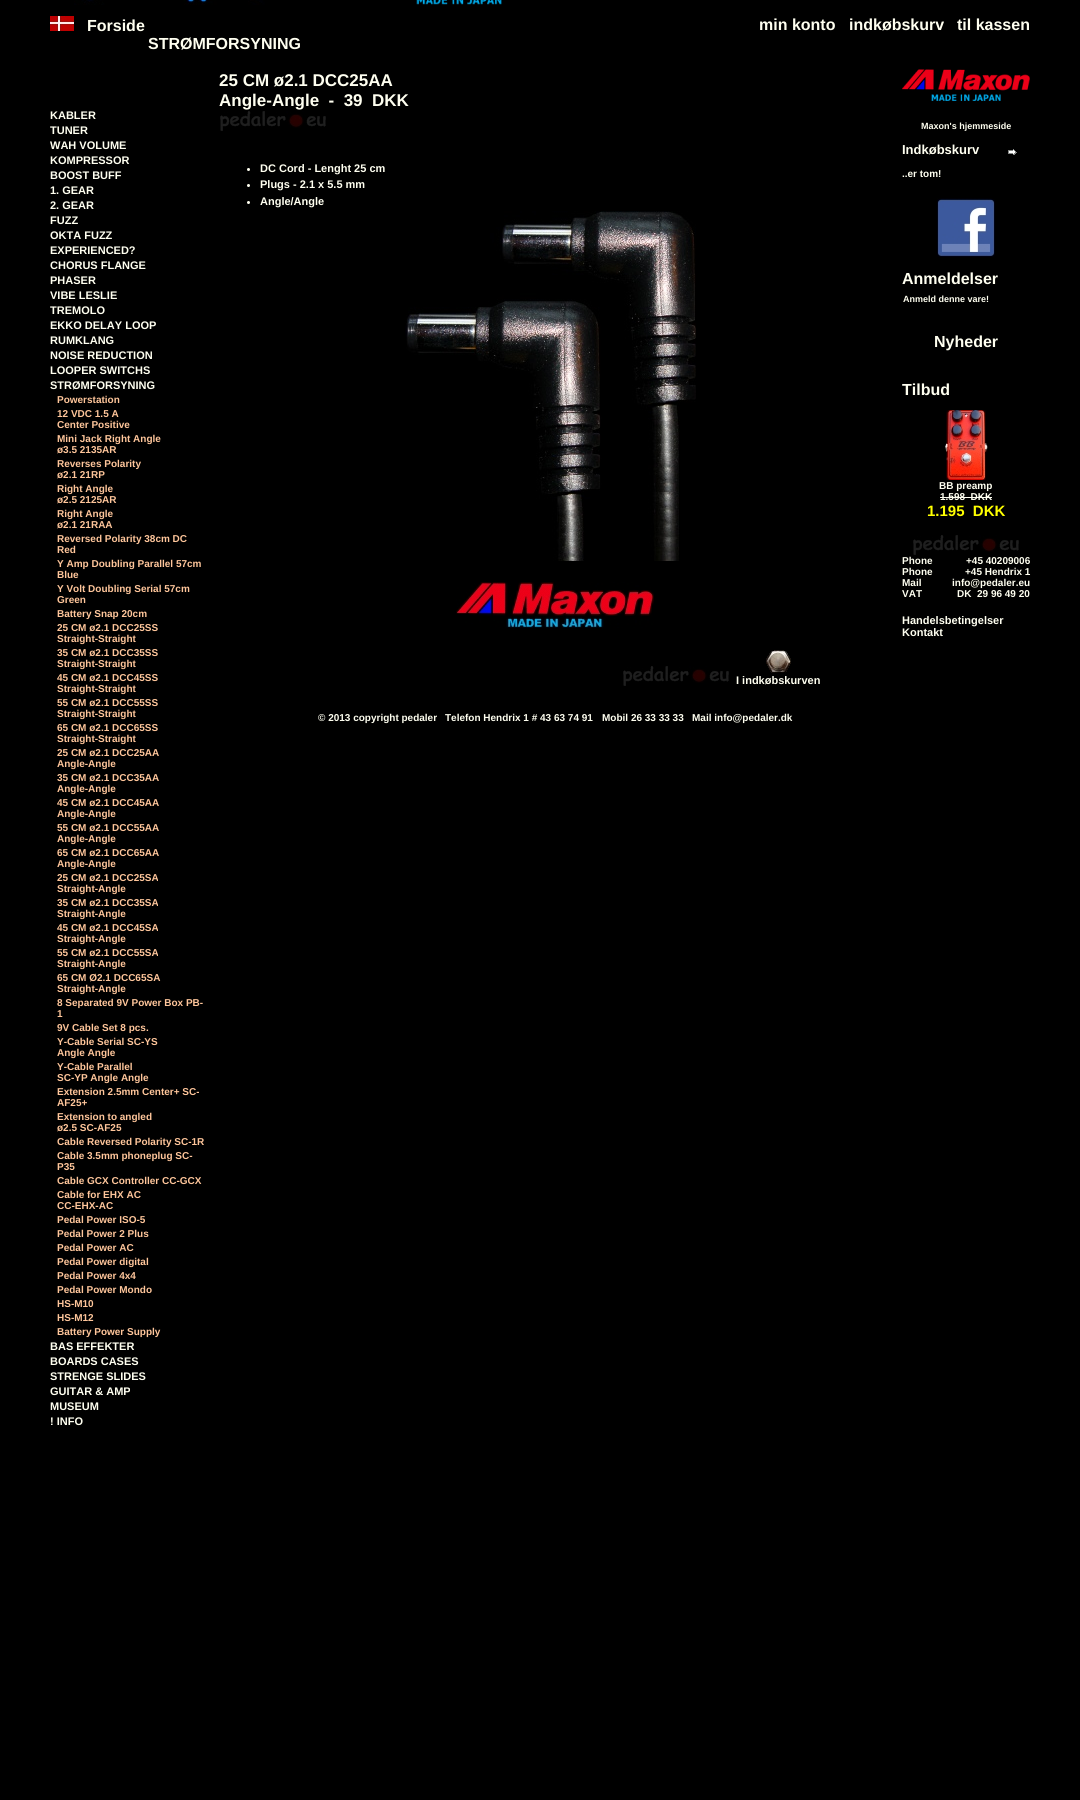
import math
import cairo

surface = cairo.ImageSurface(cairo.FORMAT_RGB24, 1080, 1800)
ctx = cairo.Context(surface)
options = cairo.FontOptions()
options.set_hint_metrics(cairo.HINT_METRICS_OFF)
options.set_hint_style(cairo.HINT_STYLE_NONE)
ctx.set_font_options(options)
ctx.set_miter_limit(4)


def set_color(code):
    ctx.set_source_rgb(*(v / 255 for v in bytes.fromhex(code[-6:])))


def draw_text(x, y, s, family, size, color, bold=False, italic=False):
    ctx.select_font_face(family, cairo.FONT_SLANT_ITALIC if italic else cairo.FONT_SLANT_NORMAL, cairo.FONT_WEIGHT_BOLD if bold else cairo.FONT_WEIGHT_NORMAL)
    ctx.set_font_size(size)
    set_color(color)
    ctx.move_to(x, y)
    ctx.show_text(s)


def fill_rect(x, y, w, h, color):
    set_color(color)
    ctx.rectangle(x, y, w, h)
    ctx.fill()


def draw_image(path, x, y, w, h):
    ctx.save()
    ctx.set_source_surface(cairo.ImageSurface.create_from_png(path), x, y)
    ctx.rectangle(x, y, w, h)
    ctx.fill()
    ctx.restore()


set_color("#000000")
ctx.paint()
draw_image("assets/img1.png", 74, 0, 428, 5)
draw_image("assets/img2.png", 50, 16, 24, 15)
draw_text(87, 31, "Forside", "Liberation Sans", 16, "#fffff0", bold=True)
draw_text(148, 49, "STRØMFORSYNING", "Liberation Sans", 16, "#fffff0", bold=True)
draw_text(759, 30, "min konto", "Liberation Sans", 16, "#fffff0", bold=True)
draw_text(849, 30, "indkøbskurv", "Liberation Sans", 16, "#fffff0", bold=True)
draw_text(957, 30, "til kassen", "Liberation Sans", 16, "#fffff0", bold=True)
draw_text(50, 119, "KABLER", "Liberation Sans", 11, "#fffff0", bold=True)
draw_text(50, 134, "TUNER", "Liberation Sans", 11, "#fffff0", bold=True)
draw_text(50, 149, "WAH VOLUME", "Liberation Sans", 11, "#fffff0", bold=True)
draw_text(50, 164, "KOMPRESSOR", "Liberation Sans", 11, "#fffff0", bold=True)
draw_text(50, 179, "BOOST BUFF", "Liberation Sans", 11, "#fffff0", bold=True)
draw_text(50, 194, "1. GEAR", "Liberation Sans", 11, "#fffff0", bold=True)
draw_text(50, 209, "2. GEAR", "Liberation Sans", 11, "#fffff0", bold=True)
draw_text(50, 224, "FUZZ", "Liberation Sans", 11, "#fffff0", bold=True)
draw_text(50, 239, "OKTA FUZZ", "Liberation Sans", 11, "#fffff0", bold=True)
draw_text(50, 254, "EXPERIENCED?", "Liberation Sans", 11, "#fffff0", bold=True)
draw_text(50, 269, "CHORUS FLANGE", "Liberation Sans", 11, "#fffff0", bold=True)
draw_text(50, 284, "PHASER", "Liberation Sans", 11, "#fffff0", bold=True)
draw_text(50, 299, "VIBE LESLIE", "Liberation Sans", 11, "#fffff0", bold=True)
draw_text(50, 314, "TREMOLO", "Liberation Sans", 11, "#fffff0", bold=True)
draw_text(50, 329, "EKKO DELAY LOOP", "Liberation Sans", 11, "#fffff0", bold=True)
draw_text(50, 344, "RUMKLANG", "Liberation Sans", 11, "#fffff0", bold=True)
draw_text(50, 359, "NOISE REDUCTION", "Liberation Sans", 11, "#fffff0", bold=True)
draw_text(50, 374, "LOOPER SWITCHS", "Liberation Sans", 11, "#fffff0", bold=True)
draw_text(50, 389, "STRØMFORSYNING", "Liberation Sans", 11, "#fffff0", bold=True)
draw_text(57, 403, "Powerstation", "Liberation Sans", 10, "#ffc69b", bold=True)
draw_text(57, 417, "12 VDC 1.5 A", "Liberation Sans", 10, "#ffc69b", bold=True)
draw_text(57, 428, "Center Positive", "Liberation Sans", 10, "#ffc69b", bold=True)
draw_text(57, 442, "Mini Jack Right Angle", "Liberation Sans", 10, "#ffc69b", bold=True)
draw_text(57, 453, "ø3.5 2135AR", "Liberation Sans", 10, "#ffc69b", bold=True)
draw_text(57, 467, "Reverses Polarity", "Liberation Sans", 10, "#ffc69b", bold=True)
draw_text(57, 478, "ø2.1 21RP", "Liberation Sans", 10, "#ffc69b", bold=True)
draw_text(57, 492, "Right Angle", "Liberation Sans", 10, "#ffc69b", bold=True)
draw_text(57, 503, "ø2.5 2125AR", "Liberation Sans", 10, "#ffc69b", bold=True)
draw_text(57, 517, "Right Angle", "Liberation Sans", 10, "#ffc69b", bold=True)
draw_text(57, 528, "ø2.1 21RAA", "Liberation Sans", 10, "#ffc69b", bold=True)
draw_text(57, 542, "Reversed Polarity 38cm DC", "Liberation Sans", 10, "#ffc69b", bold=True)
draw_text(57, 553, "Red", "Liberation Sans", 10, "#ffc69b", bold=True)
draw_text(57, 567, "Y Amp Doubling Parallel 57cm", "Liberation Sans", 10, "#ffc69b", bold=True)
draw_text(57, 578, "Blue", "Liberation Sans", 10, "#ffc69b", bold=True)
draw_text(57, 592, "Y Volt Doubling Serial 57cm", "Liberation Sans", 10, "#ffc69b", bold=True)
draw_text(57, 603, "Green", "Liberation Sans", 10, "#ffc69b", bold=True)
draw_text(57, 617, "Battery Snap 20cm", "Liberation Sans", 10, "#ffc69b", bold=True)
draw_text(57, 631, "25 CM ø2.1 DCC25SS", "Liberation Sans", 10, "#ffc69b", bold=True)
draw_text(57, 642, "Straight-Straight", "Liberation Sans", 10, "#ffc69b", bold=True)
draw_text(57, 656, "35 CM ø2.1 DCC35SS", "Liberation Sans", 10, "#ffc69b", bold=True)
draw_text(57, 667, "Straight-Straight", "Liberation Sans", 10, "#ffc69b", bold=True)
draw_text(57, 681, "45 CM ø2.1 DCC45SS", "Liberation Sans", 10, "#ffc69b", bold=True)
draw_text(57, 692, "Straight-Straight", "Liberation Sans", 10, "#ffc69b", bold=True)
draw_text(57, 706, "55 CM ø2.1 DCC55SS", "Liberation Sans", 10, "#ffc69b", bold=True)
draw_text(57, 717, "Straight-Straight", "Liberation Sans", 10, "#ffc69b", bold=True)
draw_text(57, 731, "65 CM ø2.1 DCC65SS", "Liberation Sans", 10, "#ffc69b", bold=True)
draw_text(57, 742, "Straight-Straight", "Liberation Sans", 10, "#ffc69b", bold=True)
draw_text(57, 756, "25 CM ø2.1 DCC25AA", "Liberation Sans", 10, "#ffc69b", bold=True)
draw_text(57, 767, "Angle-Angle", "Liberation Sans", 10, "#ffc69b", bold=True)
draw_text(57, 781, "35 CM ø2.1 DCC35AA", "Liberation Sans", 10, "#ffc69b", bold=True)
draw_text(57, 792, "Angle-Angle", "Liberation Sans", 10, "#ffc69b", bold=True)
draw_text(57, 806, "45 CM ø2.1 DCC45AA", "Liberation Sans", 10, "#ffc69b", bold=True)
draw_text(57, 817, "Angle-Angle", "Liberation Sans", 10, "#ffc69b", bold=True)
draw_text(57, 831, "55 CM ø2.1 DCC55AA", "Liberation Sans", 10, "#ffc69b", bold=True)
draw_text(57, 842, "Angle-Angle", "Liberation Sans", 10, "#ffc69b", bold=True)
draw_text(57, 856, "65 CM ø2.1 DCC65AA", "Liberation Sans", 10, "#ffc69b", bold=True)
draw_text(57, 867, "Angle-Angle", "Liberation Sans", 10, "#ffc69b", bold=True)
draw_text(57, 881, "25 CM ø2.1 DCC25SA", "Liberation Sans", 10, "#ffc69b", bold=True)
draw_text(57, 892, "Straight-Angle", "Liberation Sans", 10, "#ffc69b", bold=True)
draw_text(57, 906, "35 CM ø2.1 DCC35SA", "Liberation Sans", 10, "#ffc69b", bold=True)
draw_text(57, 917, "Straight-Angle", "Liberation Sans", 10, "#ffc69b", bold=True)
draw_text(57, 931, "45 CM ø2.1 DCC45SA", "Liberation Sans", 10, "#ffc69b", bold=True)
draw_text(57, 942, "Straight-Angle", "Liberation Sans", 10, "#ffc69b", bold=True)
draw_text(57, 956, "55 CM ø2.1 DCC55SA", "Liberation Sans", 10, "#ffc69b", bold=True)
draw_text(57, 967, "Straight-Angle", "Liberation Sans", 10, "#ffc69b", bold=True)
draw_text(57, 981, "65 CM Ø2.1 DCC65SA", "Liberation Sans", 10, "#ffc69b", bold=True)
draw_text(57, 992, "Straight-Angle", "Liberation Sans", 10, "#ffc69b", bold=True)
draw_text(57, 1006, "8 Separated 9V Power Box PB-", "Liberation Sans", 10, "#ffc69b", bold=True)
draw_text(57, 1017, "1", "Liberation Sans", 10, "#ffc69b", bold=True)
draw_text(57, 1031, "9V Cable Set 8 pcs.", "Liberation Sans", 10, "#ffc69b", bold=True)
draw_text(57, 1045, "Y-Cable Serial SC-YS", "Liberation Sans", 10, "#ffc69b", bold=True)
draw_text(57, 1056, "Angle Angle", "Liberation Sans", 10, "#ffc69b", bold=True)
draw_text(57, 1070, "Y-Cable Parallel", "Liberation Sans", 10, "#ffc69b", bold=True)
draw_text(57, 1081, "SC-YP Angle Angle", "Liberation Sans", 10, "#ffc69b", bold=True)
draw_text(57, 1095, "Extension 2.5mm Center+ SC-", "Liberation Sans", 10, "#ffc69b", bold=True)
draw_text(57, 1106, "AF25+", "Liberation Sans", 10, "#ffc69b", bold=True)
draw_text(57, 1120, "Extension to angled", "Liberation Sans", 10, "#ffc69b", bold=True)
draw_text(57, 1131, "ø2.5 SC-AF25", "Liberation Sans", 10, "#ffc69b", bold=True)
draw_text(57, 1145, "Cable Reversed Polarity SC-1R", "Liberation Sans", 10, "#ffc69b", bold=True)
draw_text(57, 1159, "Cable 3.5mm phoneplug SC-", "Liberation Sans", 10, "#ffc69b", bold=True)
draw_text(57, 1170, "P35", "Liberation Sans", 10, "#ffc69b", bold=True)
draw_text(57, 1184, "Cable GCX Controller CC-GCX", "Liberation Sans", 10, "#ffc69b", bold=True)
draw_text(57, 1198, "Cable for EHX AC", "Liberation Sans", 10, "#ffc69b", bold=True)
draw_text(57, 1209, "CC-EHX-AC", "Liberation Sans", 10, "#ffc69b", bold=True)
draw_text(57, 1223, "Pedal Power ISO-5", "Liberation Sans", 10, "#ffc69b", bold=True)
draw_text(57, 1237, "Pedal Power 2 Plus", "Liberation Sans", 10, "#ffc69b", bold=True)
draw_text(57, 1251, "Pedal Power AC", "Liberation Sans", 10, "#ffc69b", bold=True)
draw_text(57, 1265, "Pedal Power digital", "Liberation Sans", 10, "#ffc69b", bold=True)
draw_text(57, 1279, "Pedal Power 4x4", "Liberation Sans", 10, "#ffc69b", bold=True)
draw_text(57, 1293, "Pedal Power Mondo", "Liberation Sans", 10, "#ffc69b", bold=True)
draw_text(57, 1307, "HS-M10", "Liberation Sans", 10, "#ffc69b", bold=True)
draw_text(57, 1321, "HS-M12", "Liberation Sans", 10, "#ffc69b", bold=True)
draw_text(57, 1335, "Battery Power Supply", "Liberation Sans", 10, "#ffc69b", bold=True)
draw_text(50, 1350, "BAS EFFEKTER", "Liberation Sans", 11, "#fffff0", bold=True)
draw_text(50, 1365, "BOARDS CASES", "Liberation Sans", 11, "#fffff0", bold=True)
draw_text(50, 1380, "STRENGE SLIDES", "Liberation Sans", 11, "#fffff0", bold=True)
draw_text(50, 1395, "GUITAR & AMP", "Liberation Sans", 11, "#fffff0", bold=True)
draw_text(50, 1410, "MUSEUM", "Liberation Sans", 11, "#fffff0", bold=True)
draw_text(50, 1425, "! INFO", "Liberation Sans", 11, "#fffff0", bold=True)
draw_text(219, 86, "25 CM ø2.1 DCC25AA", "Liberation Sans", 17, "#fffff0", bold=True)
draw_text(219, 106, "Angle-Angle  -  39  DKK", "Liberation Sans", 17, "#fffff0", bold=True)
draw_image("assets/img3.png", 220, 111, 106, 20)
ctx.arc(248.5, 169.5, 1.5, 0, 2 * math.pi)
ctx.fill()
draw_text(260, 172, "DC Cord - Lenght 25 cm", "Liberation Sans", 11, "#fffff0", bold=True)
ctx.new_path()
ctx.arc(248.5, 185.5, 1.5, 0, 2 * math.pi)
ctx.fill()
draw_text(260, 188, "Plugs - 2.1 x 5.5 mm", "Liberation Sans", 11, "#fffff0", bold=True)
ctx.new_path()
ctx.arc(248.5, 202.5, 1.5, 0, 2 * math.pi)
ctx.fill()
draw_text(260, 205, "Angle/Angle", "Liberation Sans", 11, "#fffff0", bold=True)
draw_image("assets/img4.png", 405, 211, 291, 350)
draw_image("assets/img5.png", 456, 582, 198, 46)
draw_image("assets/img3.png", 623, 666, 106, 20)
draw_image("assets/img6.png", 766, 650, 25, 23)
draw_text(736, 684, "I indkøbskurven", "Liberation Sans", 11, "#fffff0", bold=True)
draw_text(318, 721, "© 2013 copyright pedaler", "Liberation Sans", 10, "#fffff0", bold=True)
draw_text(445, 721, "Telefon Hendrix 1 # 43 63 74 91", "Liberation Sans", 10, "#fffff0", bold=True)
draw_text(602, 721, "Mobil 26 33 33 33   Mail info@pedaler.dk", "Liberation Sans", 10, "#fffff0", bold=True)
draw_image("assets/img7.png", 902, 69, 128, 32)
draw_text(921, 129, "Maxon's hjemmeside", "Liberation Sans", 9, "#fffff0", bold=True)
draw_text(902, 154, "Indkøbskurv", "Liberation Sans", 13, "#fffff0", bold=True)
draw_image("assets/img8.png", 1008, 149, 9, 6)
draw_text(902, 177, "..er tom!", "Liberation Sans", 10, "#fffff0", bold=True)
draw_image("assets/img9.png", 937, 198, 58, 59)
draw_text(902, 284, "Anmeldelser", "Liberation Sans", 16, "#fffff0", bold=True)
draw_text(903, 302, "Anmeld denne vare!", "Liberation Sans", 9, "#fffff0", bold=True)
draw_text(934, 347, "Nyheder", "Liberation Sans", 16, "#fffff0", bold=True)
draw_text(902, 395, "Tilbud", "Liberation Sans", 16, "#fffff0", bold=True)
draw_image("assets/img10.png", 945, 410, 43, 70)
draw_text(939, 489, "BB preamp", "Liberation Sans", 10, "#fffff0", bold=True)
draw_text(940, 500, "1.598  DKK", "Liberation Sans", 10, "#fffff0", bold=True)
fill_rect(940, 497, 52, 1, "#fffff2")
draw_text(927, 516, "1.195  DKK", "Liberation Sans", 15, "#ffff00", bold=True)
draw_image("assets/img3.png", 913, 535, 106, 20)
draw_text(902, 564, "Phone", "Liberation Sans", 10, "#fffff0", bold=True)
draw_text(966, 564, "+45 40209006", "Liberation Sans", 10, "#fffff0", bold=True)
draw_text(902, 575, "Phone", "Liberation Sans", 10, "#fffff0", bold=True)
draw_text(965, 575, "+45 Hendrix 1", "Liberation Sans", 10, "#fffff0", bold=True)
draw_text(902, 586, "Mail", "Liberation Sans", 10, "#fffff0", bold=True)
draw_text(952, 586, "info@pedaler.eu", "Liberation Sans", 10, "#fffff0", bold=True)
draw_text(902, 597, "VAT", "Liberation Sans", 10, "#fffff0", bold=True)
draw_text(957, 597, "DK", "Liberation Sans", 10, "#fffff0", bold=True)
draw_text(977, 597, "29 96 49 20", "Liberation Sans", 10, "#fffff0", bold=True)
draw_text(902, 624, "Handelsbetingelser", "Liberation Sans", 11, "#fffff0", bold=True)
draw_text(902, 636, "Kontakt", "Liberation Sans", 11, "#fffff0", bold=True)
surface.write_to_png("output.png")
